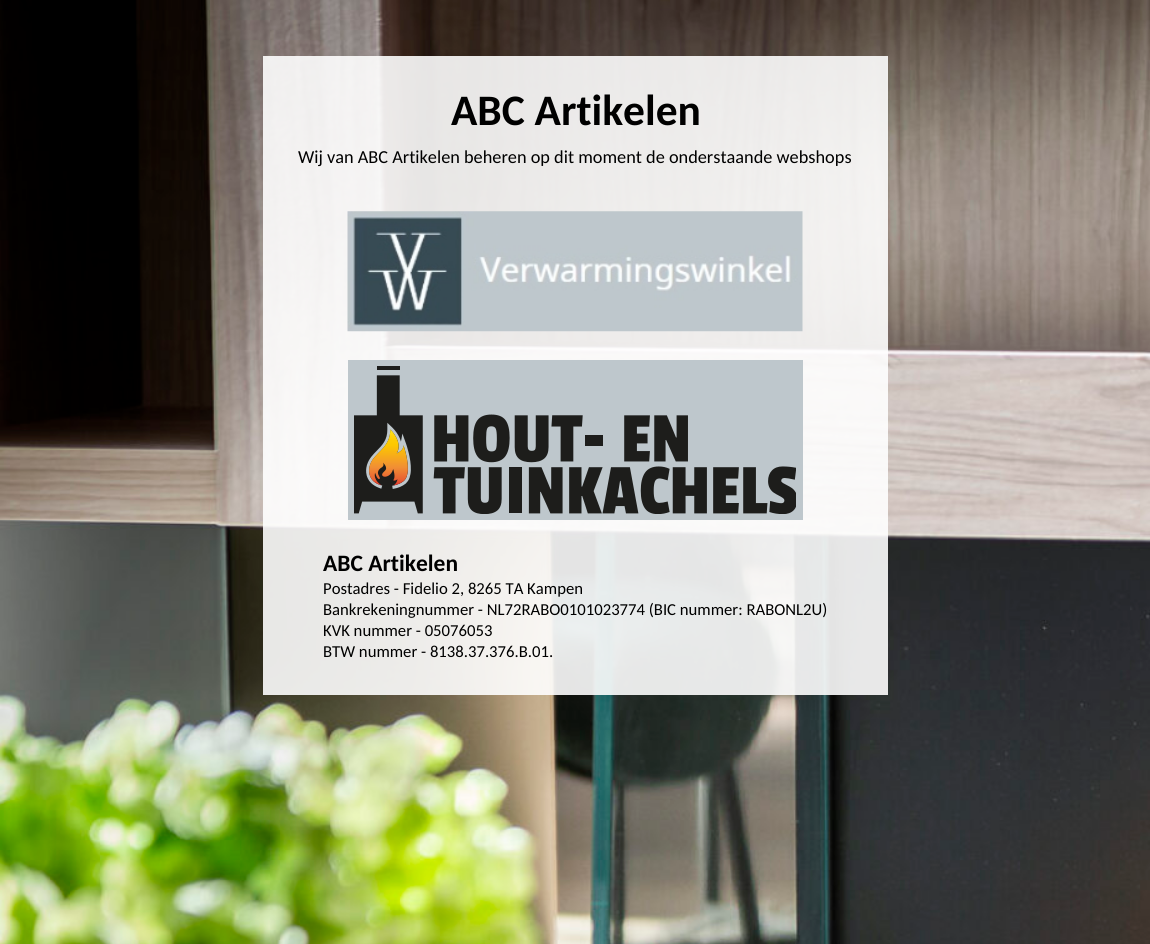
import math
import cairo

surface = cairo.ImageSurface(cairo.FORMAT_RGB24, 1150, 944)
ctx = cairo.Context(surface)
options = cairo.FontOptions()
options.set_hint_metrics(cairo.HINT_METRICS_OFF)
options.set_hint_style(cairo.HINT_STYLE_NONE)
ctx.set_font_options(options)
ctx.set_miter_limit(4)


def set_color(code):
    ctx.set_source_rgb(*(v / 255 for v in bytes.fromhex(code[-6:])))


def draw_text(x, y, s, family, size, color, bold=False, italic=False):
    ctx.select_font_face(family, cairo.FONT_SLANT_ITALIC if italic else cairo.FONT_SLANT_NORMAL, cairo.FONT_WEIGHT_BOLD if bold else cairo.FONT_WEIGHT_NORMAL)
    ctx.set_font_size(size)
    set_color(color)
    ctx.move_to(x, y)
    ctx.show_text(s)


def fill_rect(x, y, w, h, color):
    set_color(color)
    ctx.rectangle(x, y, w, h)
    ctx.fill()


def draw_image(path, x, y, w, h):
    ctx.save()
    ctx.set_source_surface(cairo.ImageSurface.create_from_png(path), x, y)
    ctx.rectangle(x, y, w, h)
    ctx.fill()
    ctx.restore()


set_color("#ffffff")
ctx.paint()
draw_image("assets/img1.png", 0, 0, 1150, 944)
ctx.set_source_rgba(1, 1, 1, 0.89)
ctx.rectangle(263, 56, 625, 639)
ctx.fill()
draw_text(451, 125, "ABC Artikelen", "Carlito", 43.5, "#000000", bold=True)
draw_text(298, 163, "Wij van ABC Artikelen beheren op dit moment de onderstaande webshops", "Carlito", 18.3, "#000000")
draw_image("assets/img2.png", 347, 211, 456, 121)
fill_rect(348, 360, 455, 160, "#bec7cc")
draw_image("assets/img3.png", 354, 366, 442, 148)
draw_text(323, 571, "ABC Artikelen", "Carlito", 23.5, "#000000", bold=True)
draw_text(323, 594, "Postadres - Fidelio 2, 8265 TA Kampen", "Carlito", 16.7, "#000000")
draw_text(323, 615, "Bankrekeningnummer - NL72RABO0101023774 (BIC nummer: RABONL2U)", "Carlito", 16.7, "#000000")
draw_text(323, 636, "KVK nummer - 05076053", "Carlito", 16.7, "#000000")
draw_text(323, 657, "BTW nummer - 8138.37.376.B.01.", "Carlito", 16.7, "#000000")
surface.write_to_png("output.png")
